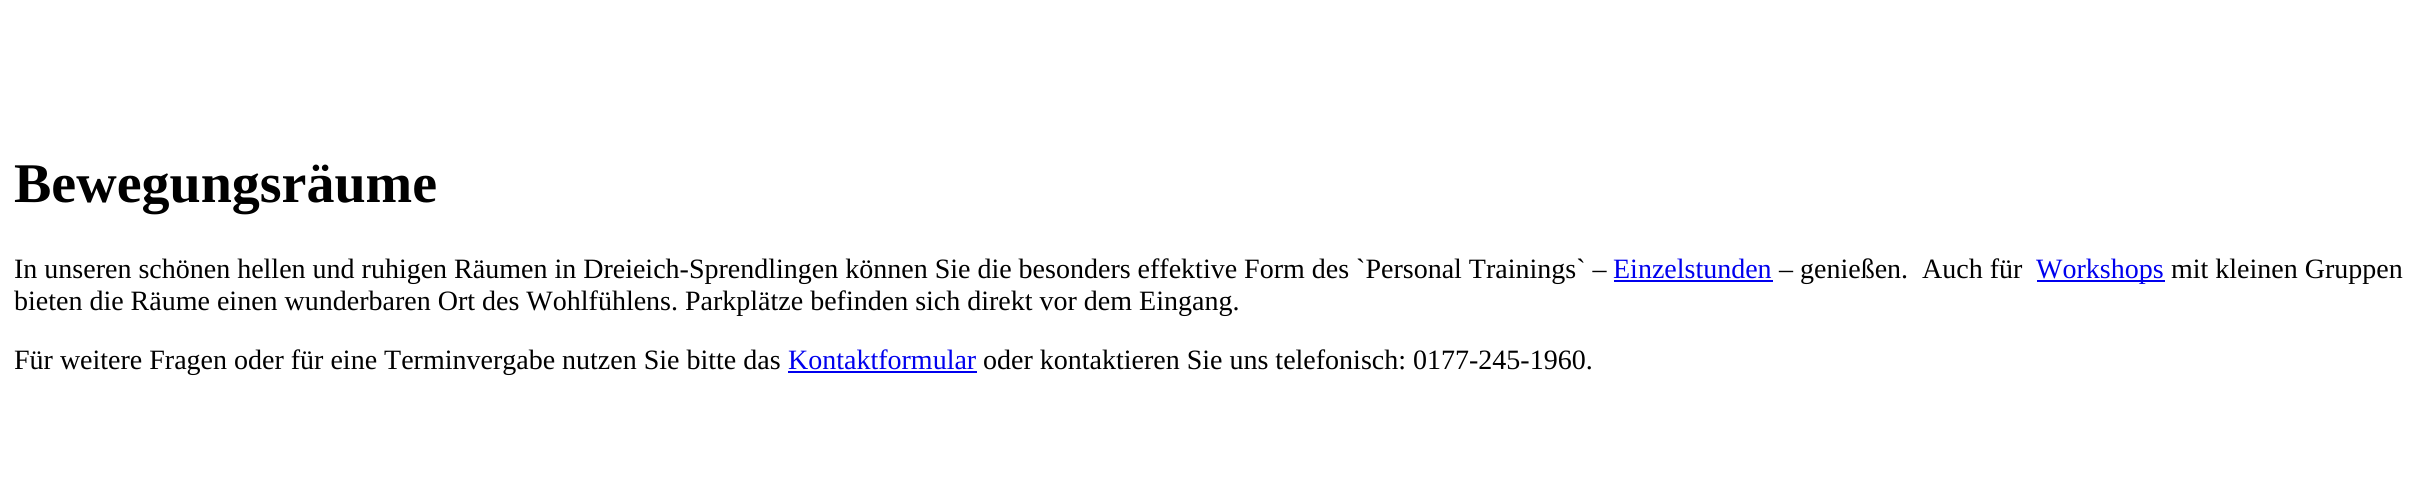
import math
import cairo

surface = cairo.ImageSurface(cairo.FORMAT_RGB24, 2427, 490)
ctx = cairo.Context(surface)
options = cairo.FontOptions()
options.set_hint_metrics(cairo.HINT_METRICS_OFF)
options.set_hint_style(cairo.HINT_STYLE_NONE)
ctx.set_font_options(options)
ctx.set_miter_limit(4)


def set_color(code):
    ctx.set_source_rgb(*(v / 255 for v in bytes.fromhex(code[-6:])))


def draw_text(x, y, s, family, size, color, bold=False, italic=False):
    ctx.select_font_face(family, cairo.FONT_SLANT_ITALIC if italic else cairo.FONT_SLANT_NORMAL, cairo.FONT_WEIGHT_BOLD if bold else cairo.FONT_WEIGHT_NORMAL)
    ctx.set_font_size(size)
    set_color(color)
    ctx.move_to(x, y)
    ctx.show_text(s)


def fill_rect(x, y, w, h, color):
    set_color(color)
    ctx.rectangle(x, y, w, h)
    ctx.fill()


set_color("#ffffff")
ctx.paint()
draw_text(14, 202, "Bewegungsräume", "Liberation Serif", 56, "#000000", bold=True)
draw_text(14, 278, "In unseren schönen hellen und ruhigen Räumen in Dreieich-Sprendlingen können Sie die besonders effektive Form des `Personal Trainings` –", "Liberation Serif", 28, "#000000")
draw_text(1613, 278, "Einzelstunden", "Liberation Serif", 28, "#0000ee")
fill_rect(1614, 280, 159, 2, "#0000ee")
draw_text(1779, 278, "– genießen.  Auch für", "Liberation Serif", 28, "#000000")
fill_rect(2037, 280, 128, 2, "#0000ee")
draw_text(2036, 278, "Workshops", "Liberation Serif", 28, "#0000ee")
draw_text(2171, 278, "mit kleinen Gruppen", "Liberation Serif", 28, "#000000")
draw_text(14, 310, "bieten die Räume einen wunderbaren Ort des Wohlfühlens. Parkplätze befinden sich direkt vor dem Eingang.", "Liberation Serif", 28, "#000000")
draw_text(14, 369, "Für weitere Fragen oder für eine Terminvergabe nutzen Sie bitte das", "Liberation Serif", 28, "#000000")
draw_text(788, 369, "Kontaktformular", "Liberation Serif", 28, "#0000ee")
fill_rect(788, 371, 189, 2, "#0000ee")
draw_text(983, 369, "oder kontaktieren Sie uns telefonisch: 0177-245-1960.", "Liberation Serif", 28, "#000000")
surface.write_to_png("output.png")
